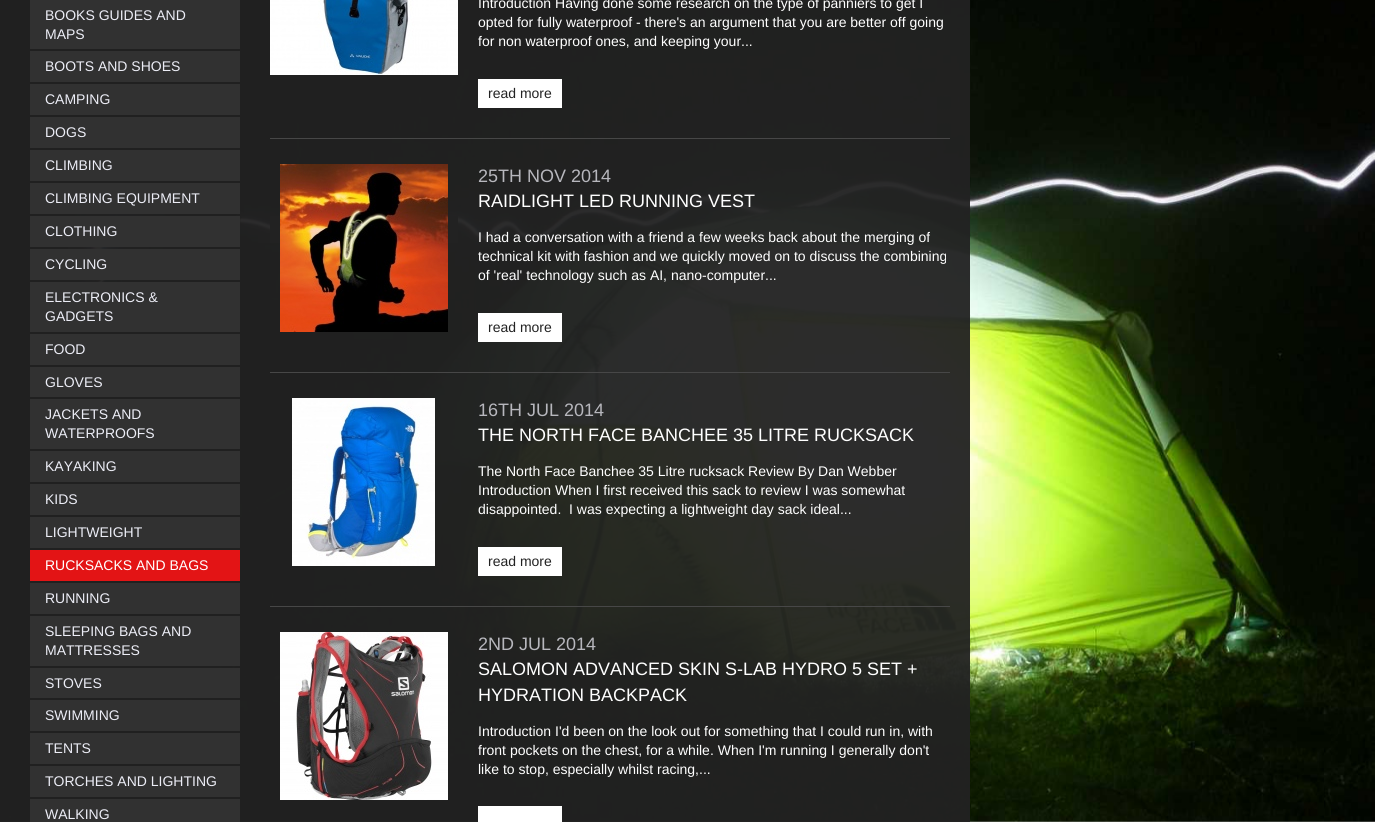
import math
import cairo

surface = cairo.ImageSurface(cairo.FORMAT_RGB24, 1375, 822)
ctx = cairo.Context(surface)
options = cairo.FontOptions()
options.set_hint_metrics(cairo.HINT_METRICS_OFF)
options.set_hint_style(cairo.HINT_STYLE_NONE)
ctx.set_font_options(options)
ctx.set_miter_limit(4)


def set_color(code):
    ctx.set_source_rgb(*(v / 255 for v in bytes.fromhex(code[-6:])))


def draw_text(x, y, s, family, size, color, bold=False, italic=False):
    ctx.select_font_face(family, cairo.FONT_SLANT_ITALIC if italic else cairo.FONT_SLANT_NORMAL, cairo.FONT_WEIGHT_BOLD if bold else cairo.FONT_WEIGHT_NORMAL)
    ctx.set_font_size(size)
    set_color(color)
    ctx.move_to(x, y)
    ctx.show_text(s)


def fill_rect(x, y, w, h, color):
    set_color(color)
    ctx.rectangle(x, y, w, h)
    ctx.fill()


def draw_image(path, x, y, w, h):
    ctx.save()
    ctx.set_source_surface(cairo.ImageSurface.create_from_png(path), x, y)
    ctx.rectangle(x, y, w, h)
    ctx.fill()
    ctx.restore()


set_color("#ffffff")
ctx.paint()
draw_image("assets/img1.png", 0, 0, 1375, 822)
ctx.set_source_rgba(0.133, 0.133, 0.133, 0.95)
ctx.rectangle(0, 0, 970, 822)
ctx.fill()
fill_rect(30, 0, 210, 49, "#313131")
draw_text(45, 20, "BOOKS GUIDES AND", "Liberation Sans", 14, "#ecedf6")
draw_text(45, 39, "MAPS", "Liberation Sans", 14, "#ecedf6")
fill_rect(30, 51, 210, 31, "#313131")
draw_text(45, 71, "BOOTS AND SHOES", "Liberation Sans", 14, "#ecedf6")
fill_rect(30, 84, 210, 31, "#313131")
draw_text(45, 104, "CAMPING", "Liberation Sans", 14, "#ecedf6")
fill_rect(30, 117, 210, 31, "#313131")
draw_text(45, 137, "DOGS", "Liberation Sans", 14, "#ecedf6")
fill_rect(30, 150, 210, 31, "#313131")
draw_text(45, 170, "CLIMBING", "Liberation Sans", 14, "#ecedf6")
fill_rect(30, 183, 210, 31, "#313131")
draw_text(45, 203, "CLIMBING EQUIPMENT", "Liberation Sans", 14, "#ecedf6")
fill_rect(30, 216, 210, 31, "#313131")
draw_text(45, 236, "CLOTHING", "Liberation Sans", 14, "#ecedf6")
fill_rect(30, 249, 210, 31, "#313131")
draw_text(45, 269, "CYCLING", "Liberation Sans", 14, "#ecedf6")
fill_rect(30, 282, 210, 50, "#313131")
draw_text(45, 302, "ELECTRONICS &", "Liberation Sans", 14, "#ecedf6")
draw_text(45, 321, "GADGETS", "Liberation Sans", 14, "#ecedf6")
fill_rect(30, 334, 210, 31, "#313131")
draw_text(45, 354, "FOOD", "Liberation Sans", 14, "#ecedf6")
fill_rect(30, 367, 210, 30, "#313131")
draw_text(45, 387, "GLOVES", "Liberation Sans", 14, "#ecedf6")
fill_rect(30, 399, 210, 50, "#313131")
draw_text(45, 419, "JACKETS AND", "Liberation Sans", 14, "#ecedf6")
draw_text(45, 438, "WATERPROOFS", "Liberation Sans", 14, "#ecedf6")
fill_rect(30, 451, 210, 31, "#313131")
draw_text(45, 471, "KAYAKING", "Liberation Sans", 14, "#ecedf6")
fill_rect(30, 484, 210, 31, "#313131")
draw_text(45, 504, "KIDS", "Liberation Sans", 14, "#ecedf6")
fill_rect(30, 517, 210, 31, "#313131")
draw_text(45, 537, "LIGHTWEIGHT", "Liberation Sans", 14, "#ecedf6")
fill_rect(30, 550, 210, 31, "#e31415")
draw_text(45, 570, "RUCKSACKS AND BAGS", "Liberation Sans", 14, "#ffffff")
fill_rect(30, 583, 210, 31, "#313131")
draw_text(45, 603, "RUNNING", "Liberation Sans", 14, "#ecedf6")
fill_rect(30, 616, 210, 50, "#313131")
draw_text(45, 636, "SLEEPING BAGS AND", "Liberation Sans", 14, "#ecedf6")
draw_text(45, 655, "MATTRESSES", "Liberation Sans", 14, "#ecedf6")
fill_rect(30, 668, 210, 30, "#313131")
draw_text(45, 688, "STOVES", "Liberation Sans", 14, "#ecedf6")
fill_rect(30, 700, 210, 31, "#313131")
draw_text(45, 720, "SWIMMING", "Liberation Sans", 14, "#ecedf6")
fill_rect(30, 733, 210, 31, "#313131")
draw_text(45, 753, "TENTS", "Liberation Sans", 14, "#ecedf6")
fill_rect(30, 766, 210, 31, "#313131")
draw_text(45, 786, "TORCHES AND LIGHTING", "Liberation Sans", 14, "#ecedf6")
fill_rect(30, 799, 210, 23, "#313131")
draw_text(45, 819, "WALKING", "Liberation Sans", 14, "#ecedf6")
fill_rect(270, 138, 680, 1, "#474747")
draw_image("assets/img2.png", 270, 0, 188, 75)
draw_text(478, 8, "Introduction Having done some research on the type of panniers to get I", "Liberation Sans", 14, "#ffffff")
draw_text(478, 27, "opted for fully waterproof - there's an argument that you are better off going", "Liberation Sans", 14, "#ffffff")
draw_text(478, 46, "for non waterproof ones, and keeping your...", "Liberation Sans", 14, "#ffffff")
fill_rect(478, 79, 84, 29, "#ffffff")
draw_text(488, 98, "read more", "Liberation Sans", 14, "#222222")
fill_rect(270, 372, 680, 1, "#474747")
fill_rect(270, 216, 188, 27, "#222222")
draw_image("assets/img3.png", 280, 164, 168, 168)
draw_text(478, 182, "25TH NOV 2014", "Liberation Sans", 18, "#b7b7bd")
draw_text(478, 207, "RAIDLIGHT LED RUNNING VEST", "Liberation Sans", 18, "#ffffff")
draw_text(478, 242, "I had a conversation with a friend a few weeks back about the merging of", "Liberation Sans", 14, "#ffffff")
draw_text(478, 261, "technical kit with fashion and we quickly moved on to discuss the combining", "Liberation Sans", 14, "#ffffff")
draw_text(478, 280, "of 'real' technology such as AI, nano-computer...", "Liberation Sans", 14, "#ffffff")
fill_rect(478, 313, 84, 29, "#ffffff")
draw_text(488, 332, "read more", "Liberation Sans", 14, "#222222")
fill_rect(270, 606, 680, 1, "#474747")
draw_image("assets/img4.png", 292, 398, 143, 168)
draw_text(478, 416, "16TH JUL 2014", "Liberation Sans", 18, "#b7b7bd")
draw_text(478, 441, "THE NORTH FACE BANCHEE 35 LITRE RUCKSACK", "Liberation Sans", 18, "#ffffff")
draw_text(478, 476, "The North Face Banchee 35 Litre rucksack Review By Dan Webber", "Liberation Sans", 14, "#ffffff")
draw_text(478, 495, "Introduction When I first received this sack to review I was somewhat", "Liberation Sans", 14, "#ffffff")
draw_text(478, 514, "disappointed.  I was expecting a lightweight day sack ideal...", "Liberation Sans", 14, "#ffffff")
fill_rect(478, 547, 84, 29, "#ffffff")
draw_text(488, 566, "read more", "Liberation Sans", 14, "#222222")
draw_image("assets/img5.png", 280, 632, 168, 168)
draw_text(478, 650, "2ND JUL 2014", "Liberation Sans", 18, "#b7b7bd")
draw_text(478, 675, "SALOMON ADVANCED SKIN S-LAB HYDRO 5 SET +", "Liberation Sans", 18, "#ffffff")
draw_text(478, 701, "HYDRATION BACKPACK", "Liberation Sans", 18, "#ffffff")
draw_text(478, 736, "Introduction I'd been on the look out for something that I could run in, with", "Liberation Sans", 14, "#ffffff")
draw_text(478, 755, "front pockets on the chest, for a while. When I'm running I generally don't", "Liberation Sans", 14, "#ffffff")
draw_text(478, 774, "like to stop, especially whilst racing,...", "Liberation Sans", 14, "#ffffff")
fill_rect(478, 806, 84, 16, "#ffffff")
surface.write_to_png("output.png")
